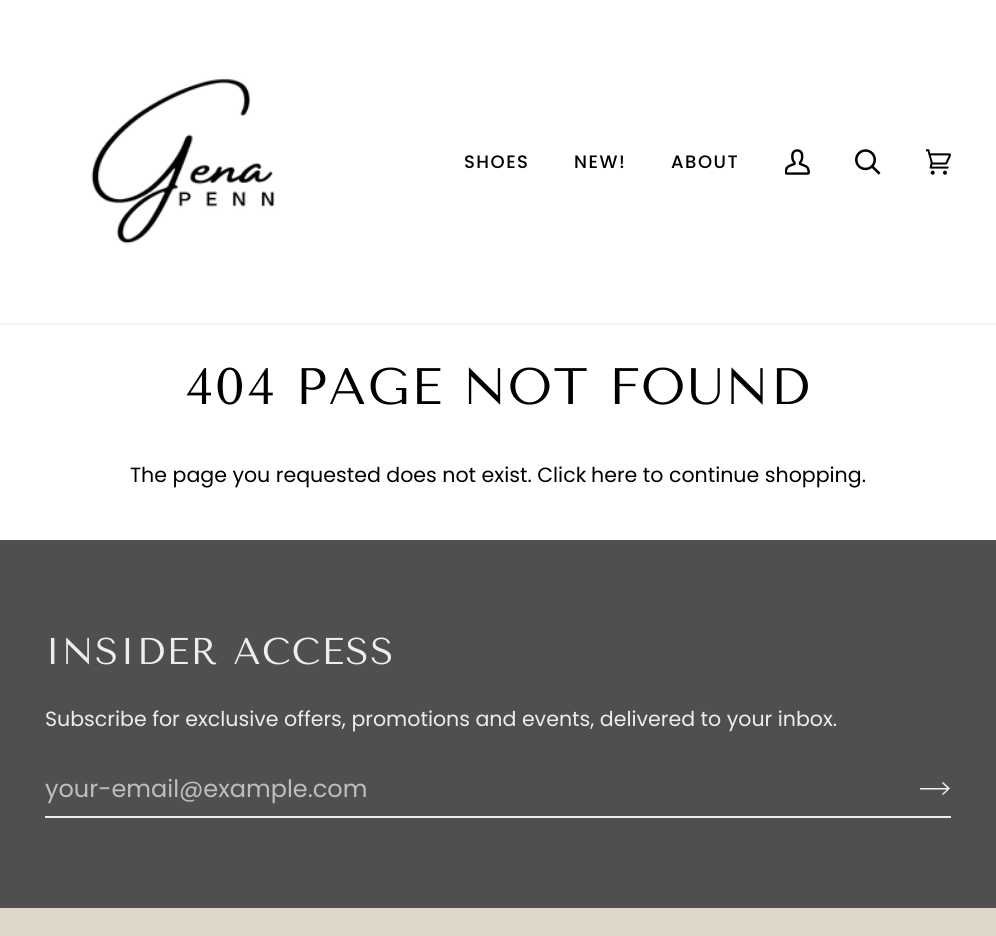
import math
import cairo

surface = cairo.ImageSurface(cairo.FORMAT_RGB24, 996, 936)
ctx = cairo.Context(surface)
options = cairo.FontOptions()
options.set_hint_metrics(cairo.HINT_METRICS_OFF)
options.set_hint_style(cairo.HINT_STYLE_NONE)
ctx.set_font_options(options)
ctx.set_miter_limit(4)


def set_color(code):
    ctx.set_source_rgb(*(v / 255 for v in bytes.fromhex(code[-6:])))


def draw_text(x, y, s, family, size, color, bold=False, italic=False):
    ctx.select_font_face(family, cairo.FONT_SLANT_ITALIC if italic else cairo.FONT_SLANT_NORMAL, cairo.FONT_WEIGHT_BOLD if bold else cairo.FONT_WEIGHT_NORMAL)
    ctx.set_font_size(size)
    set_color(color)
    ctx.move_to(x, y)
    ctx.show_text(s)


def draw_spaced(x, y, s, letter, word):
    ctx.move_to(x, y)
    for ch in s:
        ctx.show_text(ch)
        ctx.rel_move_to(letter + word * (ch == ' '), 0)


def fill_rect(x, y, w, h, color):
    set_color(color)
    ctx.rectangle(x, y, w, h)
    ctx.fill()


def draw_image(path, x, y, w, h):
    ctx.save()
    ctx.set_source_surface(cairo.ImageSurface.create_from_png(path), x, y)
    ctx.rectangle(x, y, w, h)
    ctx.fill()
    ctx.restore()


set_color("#ffffff")
ctx.paint()
fill_rect(0, 323, 996, 2, "#f6f6f6")
draw_image("assets/img1.png", 91, 78, 184, 166)
ctx.select_font_face("Poppins Medium")
ctx.set_font_size(18)
set_color("#000000")
draw_spaced(464, 168, "SHOES", 1.5, 0)
draw_spaced(574, 168, "NEW!", 1.5, 0)
draw_spaced(671, 168, "ABOUT", 1.5, 0)
draw_image("assets/img2.png", 785, 149, 25, 26)
draw_image("assets/img3.png", 855, 149, 26, 26)
draw_image("assets/img4.png", 926, 149, 25, 26)
ctx.select_font_face("Tenor Sans")
ctx.set_font_size(51.25)
draw_spaced(185, 404, "404 PAGE NOT FOUND", 1.5, 0)
draw_text(130, 482, "The page you requested does not exist. Click", "Poppins", 20.55, "#000000")
draw_text(591, 482, "here to continue shopping.", "Poppins", 20.55, "#000000")
fill_rect(0, 908, 996, 28, "#ded6c8")
fill_rect(0, 540, 996, 368, "#4f4f4f")
ctx.select_font_face("Tenor Sans")
ctx.set_font_size(37.25)
set_color("#ededed")
draw_spaced(45, 664, "INSIDER ACCESS", 1.5, 0)
draw_text(45, 726, "Subscribe for exclusive offers, promotions and events, delivered to your inbox.", "Poppins", 20.55, "#ededed")
fill_rect(45, 816, 906, 2, "#ededed")
draw_text(45, 797, "your-email@example.com", "Poppins", 24, "#bebebe")
set_color("#ededed")
ctx.new_path()
ctx.move_to(942, 783)
ctx.line_to(943, 782)
ctx.line_to(950, 788.5)
ctx.line_to(943, 795)
ctx.line_to(942, 794)
ctx.line_to(947, 789.5)
ctx.line_to(920, 789.5)
ctx.line_to(920, 788)
ctx.line_to(947, 788)
ctx.close_path()
ctx.fill()
surface.write_to_png("output.png")
